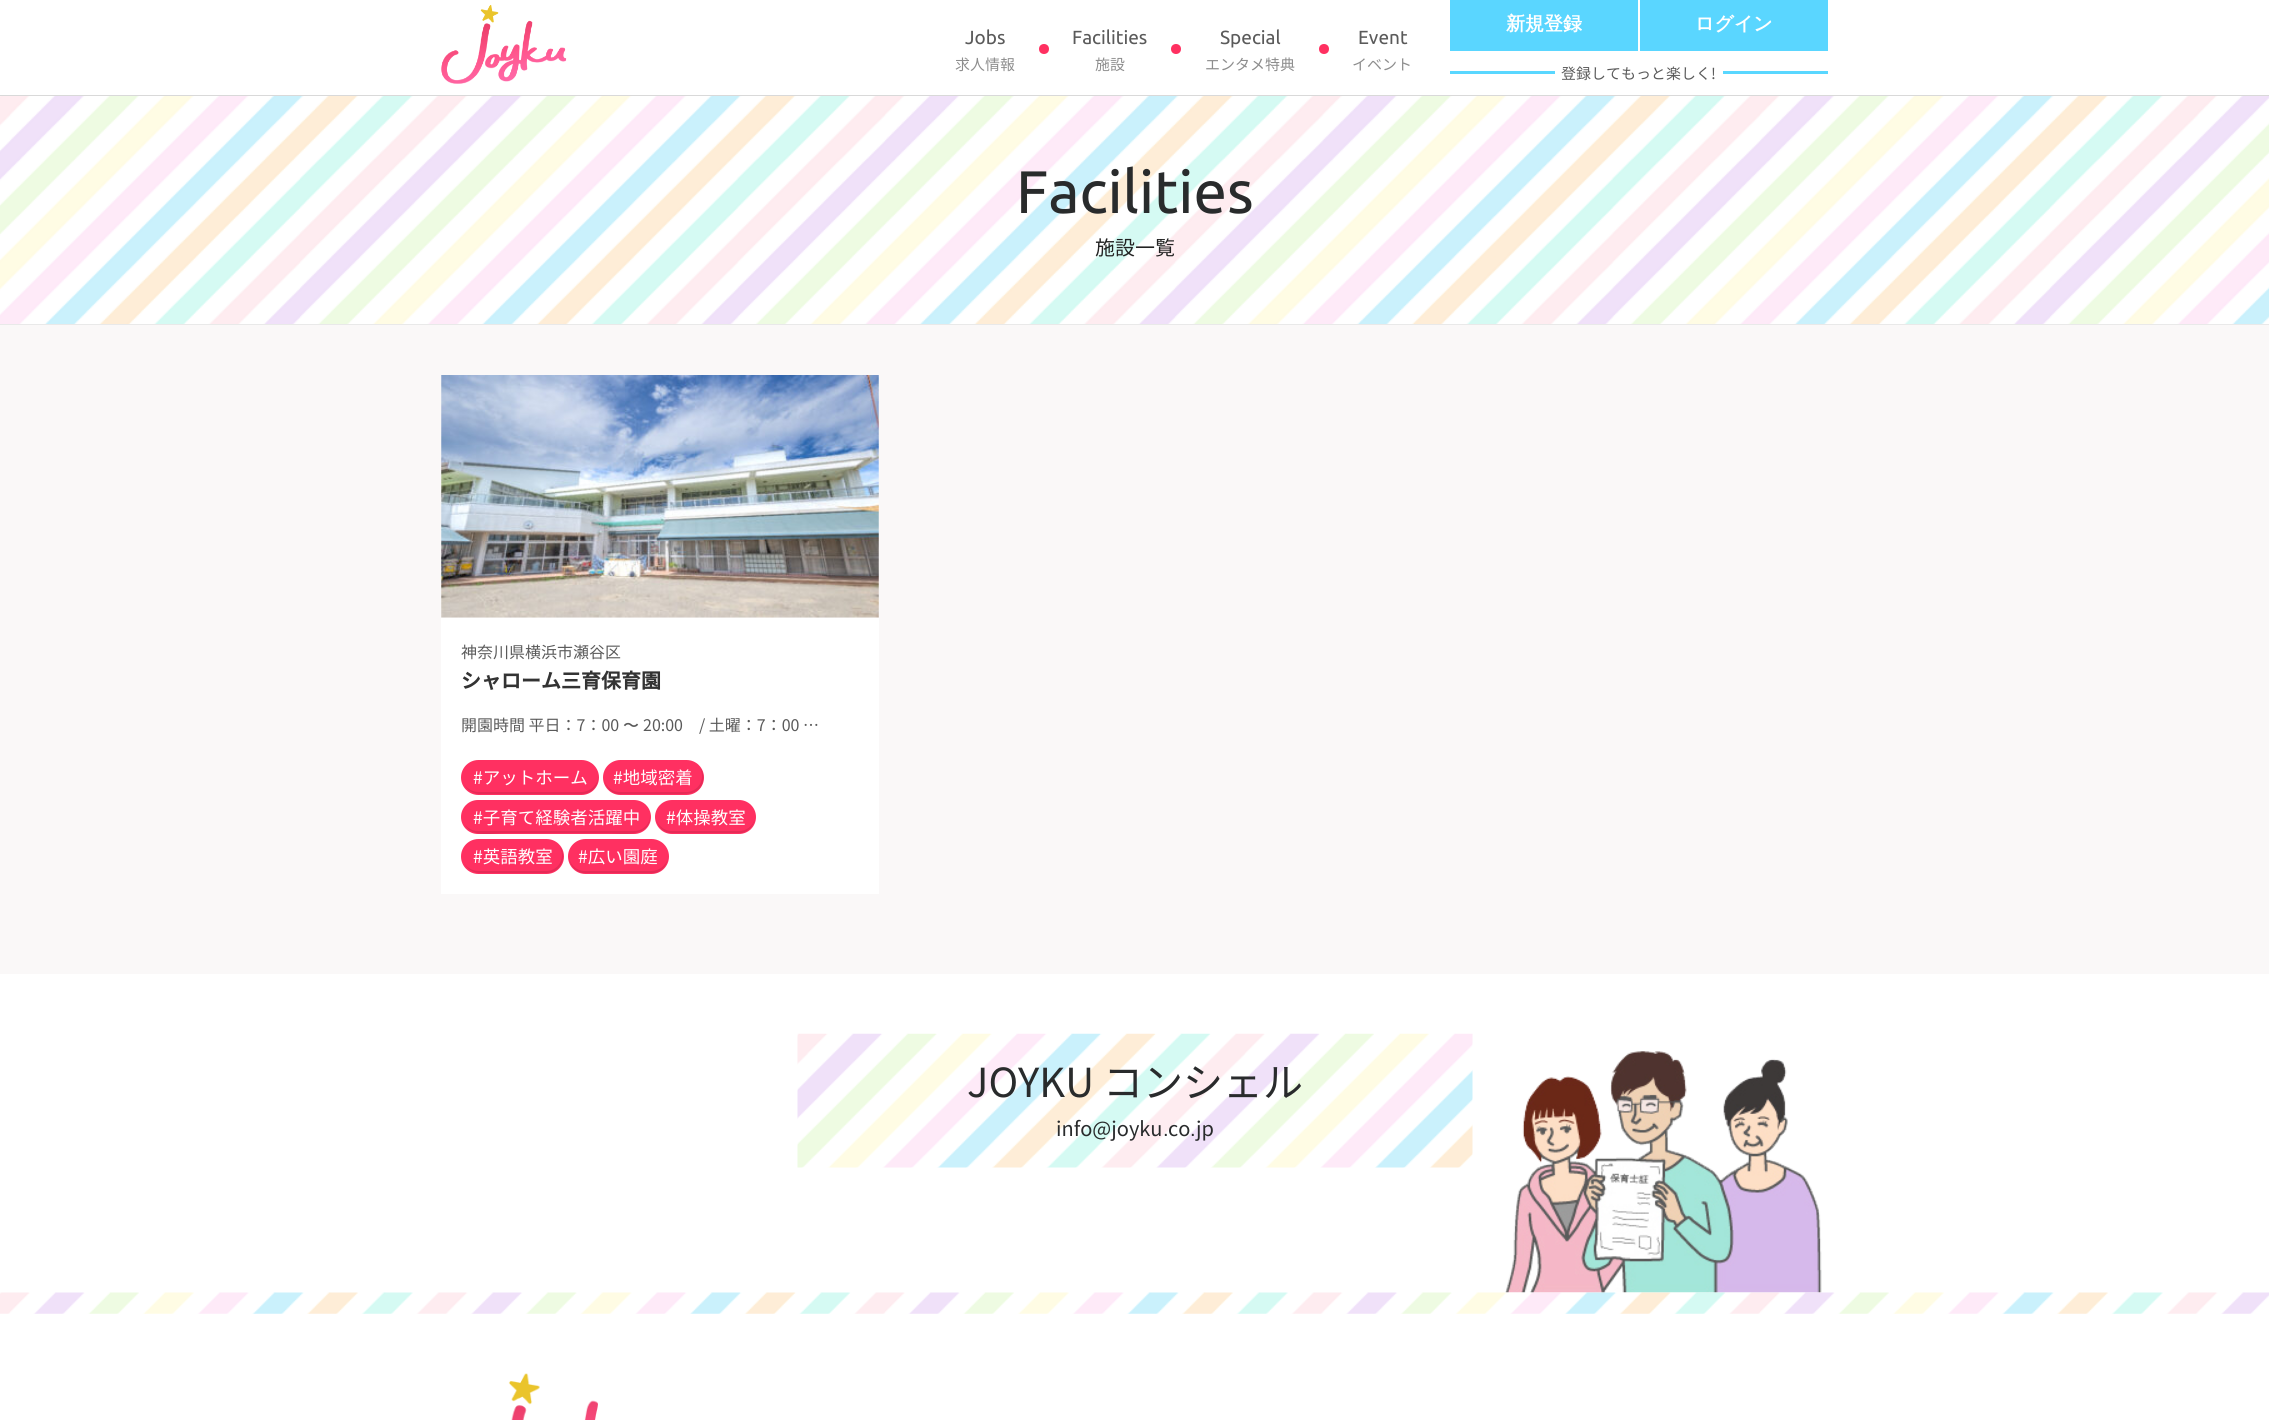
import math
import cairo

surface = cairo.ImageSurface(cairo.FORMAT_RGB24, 2269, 1420)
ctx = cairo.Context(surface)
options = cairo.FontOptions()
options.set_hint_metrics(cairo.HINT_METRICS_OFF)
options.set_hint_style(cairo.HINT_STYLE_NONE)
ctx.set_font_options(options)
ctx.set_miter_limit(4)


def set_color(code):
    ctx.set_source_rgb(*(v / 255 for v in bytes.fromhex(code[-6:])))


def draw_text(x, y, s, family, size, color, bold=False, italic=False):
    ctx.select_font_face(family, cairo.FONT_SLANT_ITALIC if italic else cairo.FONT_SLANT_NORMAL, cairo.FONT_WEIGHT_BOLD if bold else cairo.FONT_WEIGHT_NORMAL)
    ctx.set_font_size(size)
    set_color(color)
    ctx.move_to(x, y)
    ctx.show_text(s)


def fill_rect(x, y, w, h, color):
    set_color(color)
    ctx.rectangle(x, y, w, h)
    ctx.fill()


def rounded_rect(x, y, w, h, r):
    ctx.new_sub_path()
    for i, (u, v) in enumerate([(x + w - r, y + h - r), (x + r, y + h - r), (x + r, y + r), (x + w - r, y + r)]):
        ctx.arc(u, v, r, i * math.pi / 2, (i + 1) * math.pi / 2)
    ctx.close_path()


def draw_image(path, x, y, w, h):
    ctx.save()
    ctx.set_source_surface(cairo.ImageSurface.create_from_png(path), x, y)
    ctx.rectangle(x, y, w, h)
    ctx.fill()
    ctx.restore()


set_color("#ffffff")
ctx.paint()
fill_rect(0, 95, 2269, 1, "#d9d9d9")
draw_image("assets/img1.png", 441, 5, 126, 79)
fill_rect(1450, 0, 188, 51, "#5ad6ff")
draw_text(1506, 30, "新規登録", "WenQuanYi Zen Hei", 19, "#ffffff", bold=True)
fill_rect(1640, 0, 188, 51, "#5ad6ff")
draw_text(1695, 30, "ログイン", "WenQuanYi Zen Hei", 19, "#ffffff", bold=True)
draw_text(965, 44, "Jobs", "Ubuntu", 19, "#5a5a5a")
draw_text(955, 70, "求人情報", "Noto Sans CJK JP", 15, "#8d8d8d")
set_color("#ff3061")
ctx.new_path()
ctx.arc(1044, 49, 5, 0, 2 * math.pi)
ctx.fill()
draw_text(1072, 44, "Facilities", "Ubuntu", 19, "#5a5a5a")
draw_text(1095, 70, "施設", "Noto Sans CJK JP", 15, "#8d8d8d")
set_color("#ff3061")
ctx.new_path()
ctx.arc(1176, 49, 5, 0, 2 * math.pi)
ctx.fill()
draw_text(1220, 44, "Special", "Ubuntu", 19, "#5a5a5a")
draw_text(1205, 70, "エンタメ特典", "Noto Sans CJK JP", 15, "#8d8d8d")
set_color("#ff3061")
ctx.new_path()
ctx.arc(1324, 49, 5, 0, 2 * math.pi)
ctx.fill()
draw_text(1358, 44, "Event", "Ubuntu", 19, "#5a5a5a")
draw_text(1352, 70, "イベント", "Noto Sans CJK JP", 15, "#8d8d8d")
fill_rect(1450, 71, 378, 3, "#59d7ff")
fill_rect(1555, 71, 168, 3, "#ffffff")
draw_text(1561, 79, "登録してもっと楽しく!", "Noto Sans CJK JP", 15, "#5a5a5a")
fill_rect(0, 325, 2269, 649, "#faf8f8")
draw_image("assets/img2.png", 0, 96, 2269, 228)
fill_rect(0, 324, 2269, 1, "#e9e9e9")
draw_text(1016, 213, "Facilities", "Ubuntu", 60, "#292b2c")
draw_text(1095, 255, "施設一覧", "Noto Sans CJK JP", 20, "#222222")
draw_image("assets/img3.png", 441, 375, 438, 243)
fill_rect(441, 618, 438, 276, "#ffffff")
draw_text(461, 658, "神奈川県横浜市瀬谷区", "Noto Sans CJK JP", 16, "#5a5a5a")
draw_text(461, 688, "シャローム三育保育園", "Noto Sans CJK JP", 20, "#333333", bold=True)
draw_text(461, 731, "開園時間 平日：7：00", "Noto Sans CJK JP", 16, "#5a5a5a")
draw_text(623, 731, "〜", "WenQuanYi Zen Hei Medium", 16, "#5a5a5a")
draw_text(643, 731, "20:00　/ 土曜：7：00 …", "Noto Sans CJK JP", 16, "#5a5a5a")
set_color("#ff3061")
rounded_rect(461, 760, 138, 35, 17.5)
ctx.fill()
set_color("#e62b57")
ctx.new_path()
ctx.move_to(464, 784)
ctx.curve_to(467, 790, 473, 794, 480, 794)
ctx.line_to(582, 794)
ctx.curve_to(591, 794, 598, 787, 598, 778)
ctx.line_to(598, 777)
ctx.curve_to(598, 785, 590, 792, 581, 792)
ctx.line_to(479, 792)
ctx.curve_to(473, 792, 467, 789, 464, 784)
ctx.close_path()
ctx.fill()
draw_text(473, 784, "#アットホーム", "Noto Sans CJK JP", 17.5, "#ffffff")
set_color("#ff3061")
rounded_rect(603, 760, 101, 35, 17.5)
ctx.fill()
set_color("#e62b57")
ctx.new_path()
ctx.move_to(604, 777)
ctx.curve_to(604, 785, 609, 792, 617, 794)
ctx.line_to(676, 794)
ctx.curve_to(687, 794, 700, 795, 703, 781)
ctx.curve_to(704, 776, 703, 771, 700, 768)
ctx.curve_to(701, 770, 702, 773, 702, 776)
ctx.curve_to(702, 785, 695, 792, 686, 792)
ctx.line_to(620, 792)
ctx.curve_to(611, 792, 604, 785, 604, 777)
ctx.close_path()
ctx.fill()
draw_text(613, 784, "#地域密着", "Noto Sans CJK JP", 17.5, "#ffffff")
set_color("#ff3061")
rounded_rect(461, 800, 190, 34, 17)
ctx.fill()
set_color("#e62b57")
ctx.new_path()
ctx.move_to(465, 825)
ctx.curve_to(472, 838, 494, 833, 505, 833)
ctx.line_to(608, 833)
ctx.curve_to(620, 833, 651, 839, 650, 816)
ctx.curve_to(650, 824, 643, 831, 634, 831)
ctx.line_to(478, 831)
ctx.curve_to(472, 831, 468, 828, 465, 825)
ctx.close_path()
ctx.fill()
draw_text(473, 824, "#子育て経験者活躍中", "Noto Sans CJK JP", 17.5, "#ffffff")
set_color("#ff3061")
rounded_rect(655, 800, 101, 34, 17)
ctx.fill()
set_color("#e62b57")
ctx.new_path()
ctx.move_to(656, 816)
ctx.curve_to(656, 824, 661, 831, 669, 833)
ctx.line_to(742, 833)
ctx.curve_to(750, 831, 755, 824, 755, 816)
ctx.curve_to(755, 824, 748, 831, 739, 831)
ctx.line_to(672, 831)
ctx.curve_to(663, 831, 656, 824, 656, 816)
ctx.close_path()
ctx.fill()
draw_text(666, 824, "#体操教室", "Noto Sans CJK JP", 17.5, "#ffffff")
set_color("#ff3061")
rounded_rect(461, 839, 103, 35, 17.5)
ctx.fill()
set_color("#e62b57")
ctx.new_path()
ctx.move_to(464, 863)
ctx.curve_to(467, 869, 473, 873, 480, 873)
ctx.line_to(546, 873)
ctx.curve_to(556, 873, 563, 866, 563, 856)
ctx.curve_to(563, 853, 562, 849, 560, 847)
ctx.curve_to(561, 849, 562, 852, 562, 855)
ctx.curve_to(562, 864, 555, 871, 546, 871)
ctx.line_to(479, 871)
ctx.curve_to(473, 871, 467, 868, 464, 863)
ctx.close_path()
ctx.fill()
draw_text(473, 863, "#英語教室", "Noto Sans CJK JP", 17.5, "#ffffff")
set_color("#ff3061")
rounded_rect(568, 839, 101, 35, 17.5)
ctx.fill()
set_color("#e62b57")
ctx.new_path()
ctx.move_to(569, 856)
ctx.curve_to(569, 864, 574, 871, 582, 873)
ctx.line_to(655, 873)
ctx.curve_to(663, 871, 668, 864, 668, 856)
ctx.curve_to(668, 864, 660, 871, 651, 871)
ctx.line_to(585, 871)
ctx.curve_to(576, 871, 569, 864, 569, 856)
ctx.close_path()
ctx.fill()
draw_text(578, 863, "#広い園庭", "Noto Sans CJK JP", 17.5, "#ffffff")
draw_image("assets/img4.png", 797, 1033, 676, 135)
draw_text(967, 1097, "JOYKU コンシェル", "Noto Sans CJK JP", 40, "#292b2c")
draw_text(1056, 1136, "info@joyku", "Noto Sans CJK JP", 20, "#292b2c")
draw_text(1163, 1136, ".", "Liberation Sans", 20, "#292b2c")
draw_text(1168, 1136, "co", "Noto Sans CJK JP", 20, "#292b2c")
draw_text(1190, 1136, ".", "Liberation Sans", 20, "#292b2c")
draw_text(1196, 1136, "jp", "Noto Sans CJK JP", 20, "#292b2c")
draw_image("assets/img5.png", 1505, 1051, 317, 242)
draw_image("assets/img6.png", 0, 1292, 2269, 22)
draw_image("assets/img7.png", 508, 1373, 90, 47)
surface.write_to_png("output.png")
